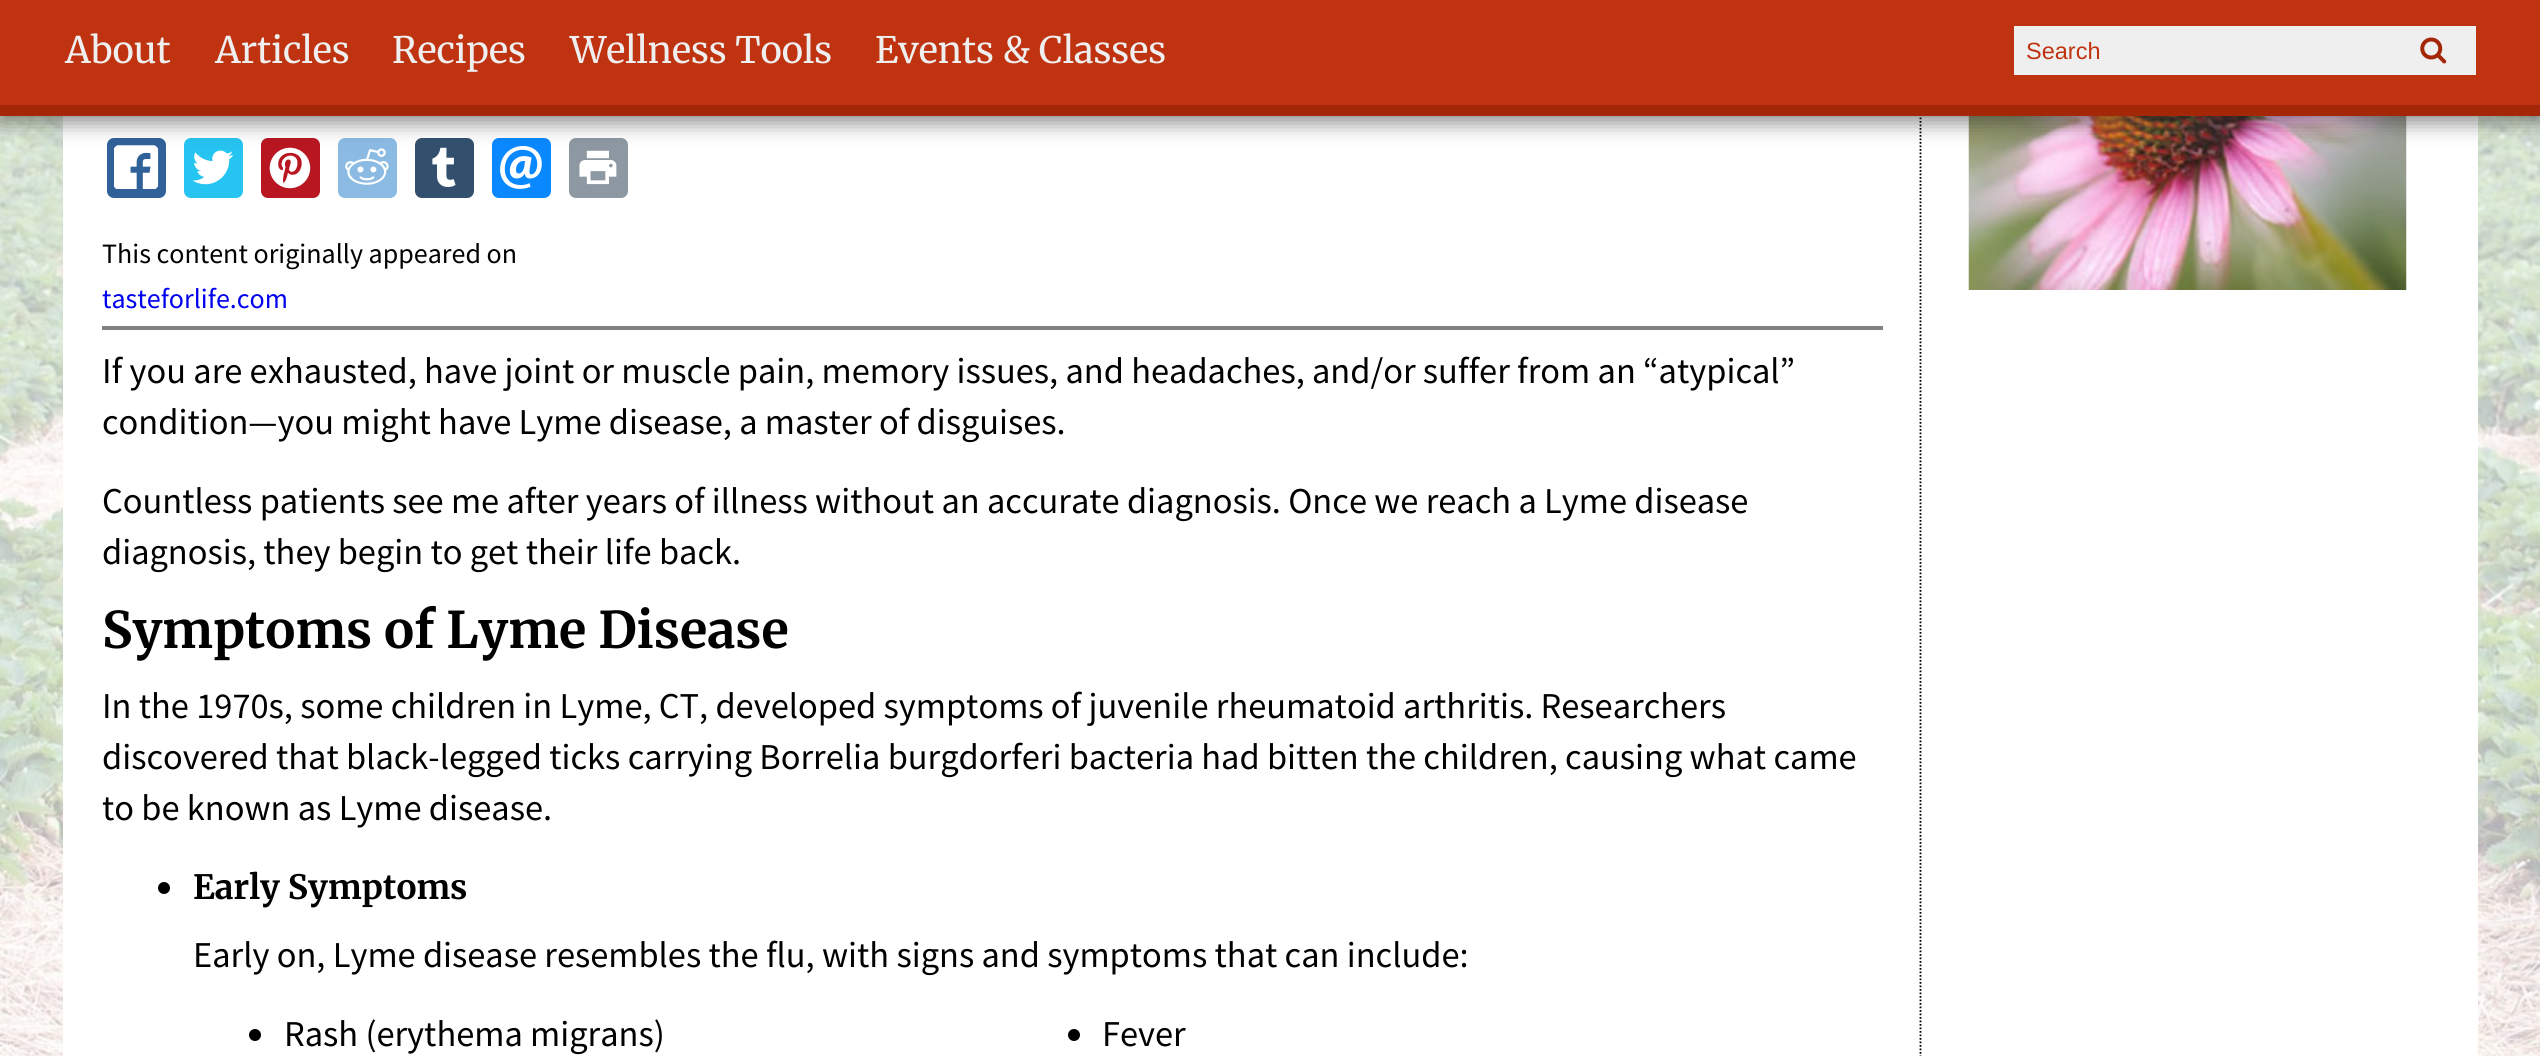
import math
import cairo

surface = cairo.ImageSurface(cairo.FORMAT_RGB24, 2540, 1056)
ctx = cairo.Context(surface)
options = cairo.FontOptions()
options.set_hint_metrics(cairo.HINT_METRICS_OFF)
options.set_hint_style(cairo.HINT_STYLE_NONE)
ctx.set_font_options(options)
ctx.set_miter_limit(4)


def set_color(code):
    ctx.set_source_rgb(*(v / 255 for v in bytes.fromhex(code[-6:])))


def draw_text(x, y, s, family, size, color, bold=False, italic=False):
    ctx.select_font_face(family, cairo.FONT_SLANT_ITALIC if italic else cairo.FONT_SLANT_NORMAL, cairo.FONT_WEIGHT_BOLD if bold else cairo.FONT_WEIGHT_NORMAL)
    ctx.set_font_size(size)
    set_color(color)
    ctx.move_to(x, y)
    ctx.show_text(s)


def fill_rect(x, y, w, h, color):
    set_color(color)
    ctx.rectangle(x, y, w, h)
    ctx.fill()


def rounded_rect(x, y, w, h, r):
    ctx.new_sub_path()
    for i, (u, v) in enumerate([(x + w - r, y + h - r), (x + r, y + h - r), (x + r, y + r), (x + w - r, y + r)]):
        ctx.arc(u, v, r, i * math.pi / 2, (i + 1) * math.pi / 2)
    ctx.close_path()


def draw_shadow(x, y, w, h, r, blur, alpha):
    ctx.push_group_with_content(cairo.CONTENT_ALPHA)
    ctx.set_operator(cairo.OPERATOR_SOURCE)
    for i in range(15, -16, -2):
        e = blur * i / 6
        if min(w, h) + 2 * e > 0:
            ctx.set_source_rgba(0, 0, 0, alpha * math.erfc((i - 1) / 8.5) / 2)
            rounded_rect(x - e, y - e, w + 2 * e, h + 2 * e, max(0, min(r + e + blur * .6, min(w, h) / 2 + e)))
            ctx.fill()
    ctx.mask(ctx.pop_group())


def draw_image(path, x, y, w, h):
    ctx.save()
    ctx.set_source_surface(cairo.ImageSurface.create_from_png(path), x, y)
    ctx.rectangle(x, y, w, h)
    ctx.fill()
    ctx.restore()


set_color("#ffffff")
ctx.paint()
draw_image("assets/img1.png", 0, 116, 2540, 940)
fill_rect(63, 116, 2415, 940, "#ffffff")
set_color("#306199")
rounded_rect(107, 138, 59, 60, 7)
ctx.fill()
draw_image("assets/img3.png", 114, 145, 45, 44)
set_color("#26c4f1")
rounded_rect(184, 138, 59, 60, 7)
ctx.fill()
draw_image("assets/img4.png", 192, 150, 41, 35)
set_color("#b81621")
rounded_rect(261, 138, 59, 60, 7)
ctx.fill()
draw_image("assets/img5.png", 269, 147, 42, 42)
set_color("#8bbbe3")
rounded_rect(338, 138, 59, 60, 7)
ctx.fill()
draw_image("assets/img6.png", 345, 148, 44, 37)
set_color("#32506d")
rounded_rect(415, 138, 59, 60, 7)
ctx.fill()
draw_image("assets/img7.png", 432, 147, 24, 40)
set_color("#0a88ff")
rounded_rect(492, 138, 59, 60, 7)
ctx.fill()
draw_image("assets/img8.png", 500, 146, 42, 43)
set_color("#8d98a2")
rounded_rect(569, 138, 59, 60, 7)
ctx.fill()
draw_image("assets/img9.png", 579, 150, 38, 35)
ctx.new_path()
ctx.move_to(1920.5, -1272)
ctx.line_to(1920.5, 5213)
set_color("#000000")
ctx.set_line_width(1.8)
ctx.set_dash([1.75, 1.75])
ctx.stroke()
draw_image("assets/img10.png", 1968, 116, 439, 174)
set_color("#161616")
draw_shadow(0, 7, 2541, 116, 0, 10.5, 0.5)
fill_rect(0, 0, 2540, 105, "#c03310")
fill_rect(0, 105, 2540, 11, "#a42708")
draw_text(65, 63, "About", "Merriweather", 36.4, "#efefef")
draw_text(215, 63, "Articles", "Merriweather", 36.4, "#efefef")
draw_text(392, 63, "Recipes", "Merriweather", 36.4, "#efefef")
draw_text(570, 63, "Wellness Tools", "Merriweather", 36.4, "#efefef")
draw_text(875, 63, "Events & Classes", "Merriweather", 36.4, "#efefef")
fill_rect(2014, 26, 462, 49, "#efefef")
draw_text(2026, 59, "Search", "Liberation Sans", 23.5, "#c03310")
draw_image("assets/img2.png", 2420, 37, 27, 27)
draw_text(102, 263, "This content originally appeared on", "Source Sans Pro", 28, "#000000")
draw_text(102, 308, "tasteforlife.com", "Source Sans Pro", 28, "#0000ee")
fill_rect(102, 326, 1781, 4, "#808080")
draw_text(102, 383, "If you are exhausted, have joint or muscle pain, memory issues, and headaches, and/or suffer from an “atypical”", "Source Sans Pro", 36.4, "#000000")
draw_text(102, 434, "condition—you might have Lyme disease, a master of disguises.", "Source Sans Pro", 36.4, "#000000")
draw_text(102, 513, "Countless patients see me after years of illness without an accurate diagnosis. Once we reach a Lyme disease", "Source Sans Pro", 36.4, "#000000")
draw_text(102, 564, "diagnosis, they begin to get their life back.", "Source Sans Pro", 36.4, "#000000")
draw_text(102, 648, "Symptoms of Lyme Disease", "Merriweather", 50.4, "#000000", bold=True)
draw_text(102, 718, "In the 1970s, some children in Lyme, CT, developed symptoms of juvenile rheumatoid arthritis. Researchers", "Source Sans Pro", 36.4, "#000000")
draw_text(102, 769, "discovered that black-legged ticks carrying Borrelia burgdorferi bacteria had bitten the children, causing what came", "Source Sans Pro", 36.4, "#000000")
draw_text(102, 820, "to be known as Lyme disease.", "Source Sans Pro", 36.4, "#000000")
ctx.new_path()
ctx.arc(164, 888, 6, 0, 2 * math.pi)
ctx.fill()
draw_text(193, 899, "Early Symptoms", "Merriweather", 33.5, "#000000", bold=True)
draw_text(193, 967, "Early on, Lyme disease resembles the flu, with signs and symptoms that can include:", "Source Sans Pro", 36.4, "#000000")
ctx.new_path()
ctx.arc(255, 1035, 6, 0, 2 * math.pi)
ctx.fill()
draw_text(284, 1046, "Rash (erythema migrans)", "Source Sans Pro", 36.4, "#000000")
ctx.new_path()
ctx.arc(1074, 1035, 6, 0, 2 * math.pi)
ctx.fill()
draw_text(1102, 1046, "Fever", "Source Sans Pro", 36.4, "#000000")
surface.write_to_png("output.png")
